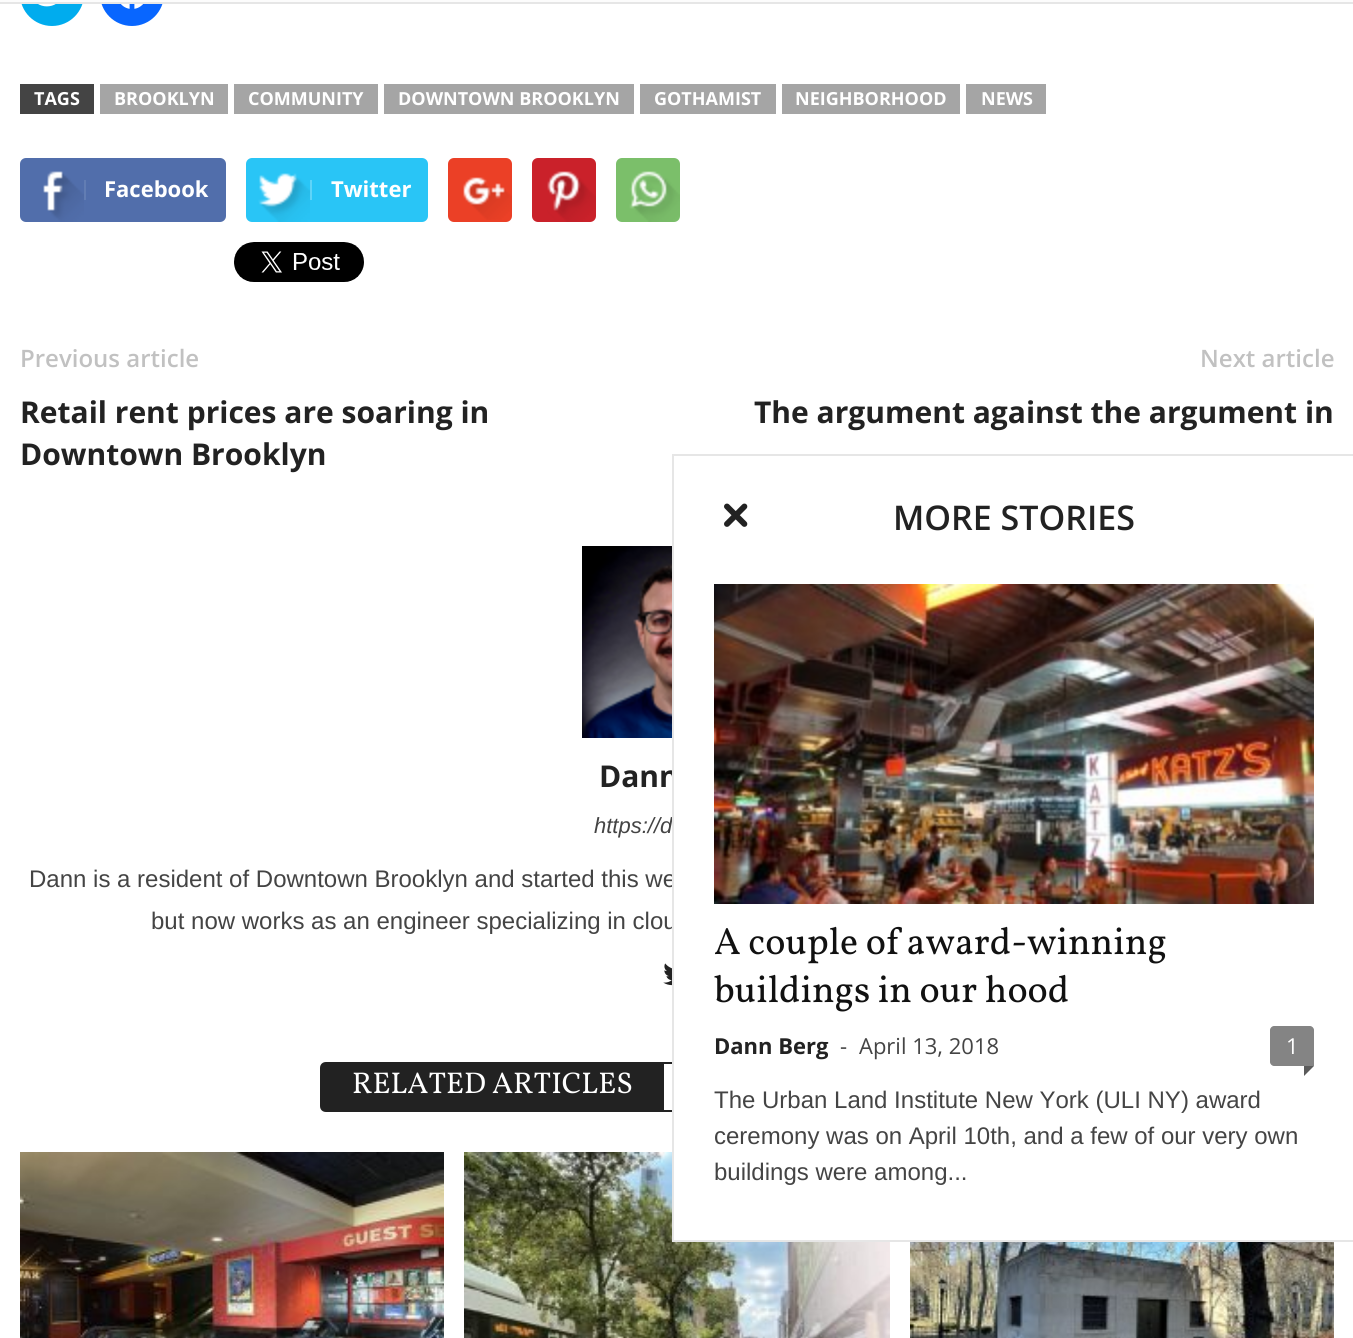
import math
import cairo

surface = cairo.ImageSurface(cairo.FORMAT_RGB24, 1353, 1338)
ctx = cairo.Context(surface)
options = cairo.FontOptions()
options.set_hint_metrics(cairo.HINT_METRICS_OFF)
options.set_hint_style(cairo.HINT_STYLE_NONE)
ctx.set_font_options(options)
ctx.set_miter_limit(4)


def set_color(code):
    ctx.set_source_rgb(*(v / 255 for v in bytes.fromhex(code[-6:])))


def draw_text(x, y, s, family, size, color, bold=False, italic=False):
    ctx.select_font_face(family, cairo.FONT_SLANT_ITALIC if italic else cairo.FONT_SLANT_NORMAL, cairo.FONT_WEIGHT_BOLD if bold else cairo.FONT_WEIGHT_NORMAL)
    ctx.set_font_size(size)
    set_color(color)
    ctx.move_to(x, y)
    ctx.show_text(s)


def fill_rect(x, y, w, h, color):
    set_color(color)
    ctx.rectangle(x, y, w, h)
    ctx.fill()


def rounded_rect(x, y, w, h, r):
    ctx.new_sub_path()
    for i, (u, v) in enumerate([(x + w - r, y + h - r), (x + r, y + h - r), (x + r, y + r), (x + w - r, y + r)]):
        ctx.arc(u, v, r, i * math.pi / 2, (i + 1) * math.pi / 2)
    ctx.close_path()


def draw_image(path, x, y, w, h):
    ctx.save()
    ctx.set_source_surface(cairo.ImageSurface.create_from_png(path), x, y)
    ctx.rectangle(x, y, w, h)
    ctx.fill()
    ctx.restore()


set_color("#ffffff")
ctx.paint()
set_color("#00acee")
rounded_rect(20, -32, 64, 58, 32)
ctx.fill()
set_color("#0866ff")
rounded_rect(100, -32, 64, 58, 32)
ctx.fill()
fill_rect(0, 0, 1353, 2, "#fcfcfc")
fill_rect(0, 2, 1353, 2, "#e6e6e6")
draw_image("assets/img1.png", 38, 4, 18, 3)
draw_image("assets/img2.png", 121, 4, 22, 5)
fill_rect(20, 84, 74, 30, "#444444")
draw_text(34, 105, "TAGS", "Open Sans", 18, "#ffffff", bold=True)
fill_rect(100, 84, 128, 30, "#a5a5a5")
draw_text(114, 105, "BROOKLYN", "Open Sans", 18, "#ffffff", bold=True)
fill_rect(234, 84, 144, 30, "#a5a5a5")
draw_text(248, 105, "COMMUNITY", "Open Sans", 18, "#ffffff", bold=True)
fill_rect(384, 84, 250, 30, "#a5a5a5")
draw_text(398, 105, "DOWNTOWN BROOKLYN", "Open Sans", 18, "#ffffff", bold=True)
fill_rect(640, 84, 136, 30, "#a5a5a5")
draw_text(654, 105, "GOTHAMIST", "Open Sans", 18, "#ffffff", bold=True)
fill_rect(782, 84, 178, 30, "#a5a5a5")
draw_text(795, 105, "NEIGHBORHOOD", "Open Sans", 18, "#ffffff", bold=True)
fill_rect(966, 84, 80, 30, "#a5a5a5")
draw_text(981, 105, "NEWS", "Open Sans", 18, "#ffffff", bold=True)
set_color("#516eab")
rounded_rect(20, 158, 206, 64, 6)
ctx.fill()
draw_image("assets/img3.png", 43, 171, 41, 51)
fill_rect(84, 180, 2, 20, "#627db3")
draw_text(104, 197, "Facebook", "Open Sans", 22, "#ffffff", bold=True)
set_color("#29c5f6")
rounded_rect(246, 158, 182, 64, 6)
ctx.fill()
draw_image("assets/img4.png", 258, 173, 52, 49)
fill_rect(310, 180, 2, 20, "#5fd4f8")
draw_text(331, 197, "Twitter", "Open Sans", 22, "#ffffff", bold=True)
set_color("#eb4026")
rounded_rect(448, 158, 64, 64, 6)
ctx.fill()
draw_image("assets/img5.png", 463, 177, 49, 43)
set_color("#ca212a")
rounded_rect(532, 158, 64, 64, 6)
ctx.fill()
draw_image("assets/img6.png", 547, 171, 49, 51)
set_color("#7bbf6a")
rounded_rect(616, 158, 64, 64, 6)
ctx.fill()
draw_image("assets/img7.png", 629, 171, 51, 51)
draw_image("assets/img8.png", 234, 242, 130, 40)
draw_text(20, 367, "Previous article", "Open Sans SemiBold", 24, "#c1c1c1")
draw_text(20, 423, "Retail rent prices are soaring in", "Open Sans", 30, "#222222", bold=True)
draw_text(20, 465, "Downtown Brooklyn", "Open Sans", 30, "#222222", bold=True)
draw_text(1200, 367, "Next article", "Open Sans SemiBold", 24, "#c1c1c1")
draw_text(754, 423, "The argument against the argument in", "Open Sans", 30, "#222222", bold=True)
draw_image("assets/img9.png", 582, 546, 90, 192)
draw_text(599, 787, "Dann", "Open Sans", 30, "#222222", bold=True)
draw_text(594, 833, "https://d", "Liberation Sans", 22, "#444444", italic=True)
draw_text(29, 887, "Dann is a resident of Downtown Brooklyn and started this we", "Liberation Sans", 24, "#444444")
draw_text(151, 929, "but now works as an engineer specializing in clou", "Liberation Sans", 24, "#444444")
draw_image("assets/img10.png", 663, 963, 9, 23)
set_color("#222222")
ctx.new_path()
ctx.move_to(326, 1063)
ctx.line_to(663, 1063)
ctx.line_to(663, 1111)
ctx.line_to(326, 1111)
ctx.curve_to(323, 1111, 321, 1109, 321, 1106)
ctx.line_to(321, 1068)
ctx.curve_to(321, 1065, 323, 1063, 326, 1063)
ctx.close_path()
ctx.fill_preserve()
ctx.stroke()
draw_text(352, 1093, "RELATED ARTICLES", "Vollkorn", 30, "#ffffff")
set_color("#222222")
ctx.set_fill_rule(cairo.FILL_RULE_EVEN_ODD)
ctx.new_path()
ctx.move_to(664, 1062)
ctx.line_to(1028, 1062)
ctx.curve_to(1031, 1062, 1034, 1065, 1034, 1068)
ctx.line_to(1034, 1106)
ctx.curve_to(1034, 1109, 1031, 1112, 1028, 1112)
ctx.line_to(664, 1112)
ctx.close_path()
ctx.move_to(664, 1064)
ctx.line_to(1028, 1064)
ctx.curve_to(1030, 1064, 1032, 1066, 1032, 1068)
ctx.line_to(1032, 1106)
ctx.curve_to(1032, 1108, 1030, 1110, 1028, 1110)
ctx.line_to(664, 1110)
ctx.close_path()
ctx.fill()
draw_image("assets/img11.png", 20, 1152, 424, 186)
draw_image("assets/img12.png", 464, 1152, 426, 186)
draw_image("assets/img13.png", 910, 1242, 424, 96)
fill_rect(674, 771, 360, 469, "#ffffff")
fill_rect(672, 454, 681, 2, "#e6e6e6")
fill_rect(672, 1240, 681, 2, "#e6e6e6")
fill_rect(672, 454, 2, 788, "#e6e6e6")
draw_image("assets/img14.png", 724, 503, 24, 24)
draw_text(893, 530, "MORE STORIES", "Open Sans SemiBold", 34, "#222222")
draw_image("assets/img15.png", 714, 584, 600, 320)
draw_text(714, 954, "A couple of award-winning", "Vollkorn", 38, "#111111")
draw_text(714, 1002, "buildings in our hood", "Vollkorn", 38, "#111111")
draw_text(714, 1054, "Dann Berg", "Open Sans", 22, "#222222", bold=True)
draw_text(840, 1054, "-", "Open Sans", 22, "#444444")
draw_text(859, 1054, "April 13, 2018", "Open Sans", 22, "#444444")
set_color("#848484")
ctx.new_path()
ctx.move_to(1274, 1026)
ctx.line_to(1310, 1026)
ctx.curve_to(1312, 1026, 1314, 1028, 1314, 1030)
ctx.line_to(1314, 1066)
ctx.line_to(1274, 1066)
ctx.curve_to(1272, 1066, 1270, 1064, 1270, 1062)
ctx.line_to(1270, 1030)
ctx.curve_to(1270, 1028, 1272, 1026, 1274, 1026)
ctx.close_path()
ctx.fill()
draw_text(1286, 1054, "1", "Open Sans", 22, "#ffffff")
set_color("#5b5b5b")
ctx.set_fill_rule(cairo.FILL_RULE_WINDING)
ctx.new_path()
ctx.move_to(1304, 1066)
ctx.line_to(1314, 1066)
ctx.line_to(1304, 1076)
ctx.close_path()
ctx.fill()
draw_text(714, 1108, "The Urban Land Institute New York (ULI NY) award", "Liberation Sans", 24, "#444444")
draw_text(714, 1144, "ceremony was on April 10th, and a few of our very own", "Liberation Sans", 24, "#444444")
draw_text(714, 1180, "buildings were among...", "Liberation Sans", 24, "#444444")
surface.write_to_png("output.png")
